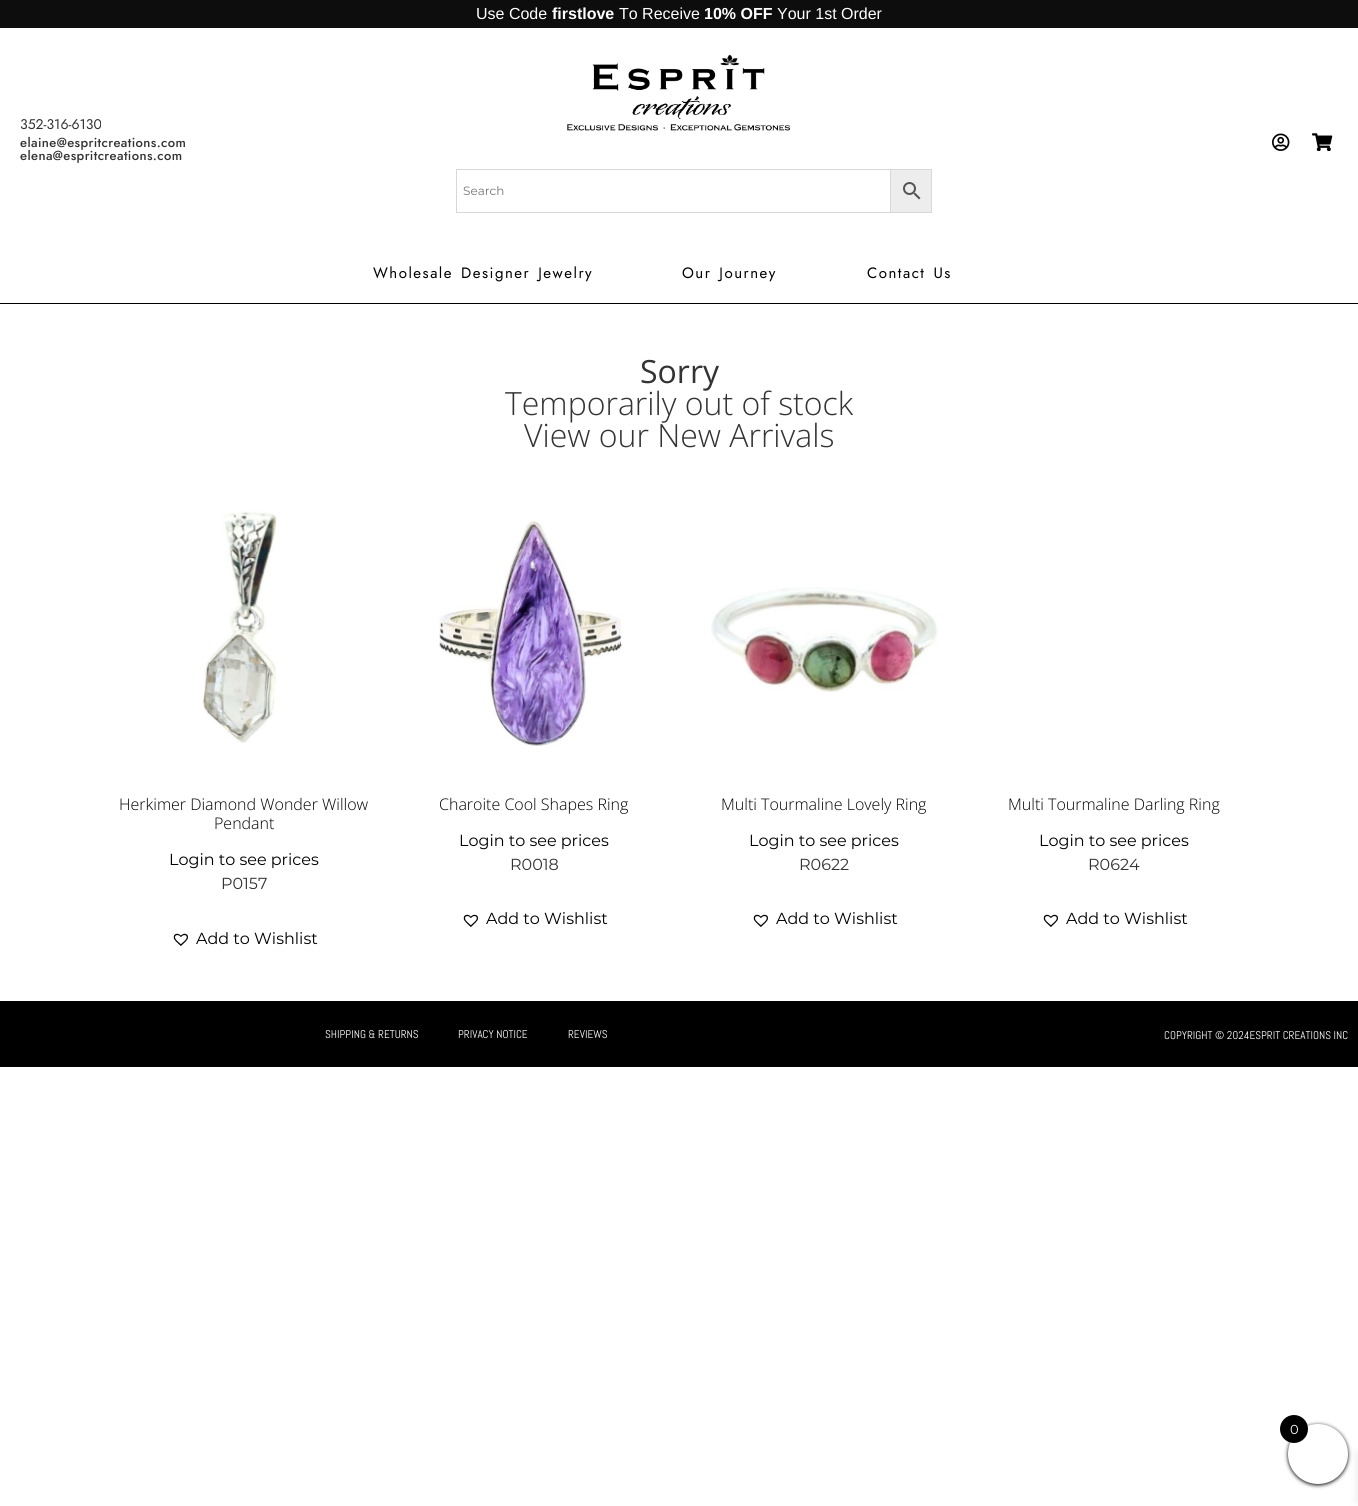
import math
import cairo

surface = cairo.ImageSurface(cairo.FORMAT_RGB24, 1358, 1506)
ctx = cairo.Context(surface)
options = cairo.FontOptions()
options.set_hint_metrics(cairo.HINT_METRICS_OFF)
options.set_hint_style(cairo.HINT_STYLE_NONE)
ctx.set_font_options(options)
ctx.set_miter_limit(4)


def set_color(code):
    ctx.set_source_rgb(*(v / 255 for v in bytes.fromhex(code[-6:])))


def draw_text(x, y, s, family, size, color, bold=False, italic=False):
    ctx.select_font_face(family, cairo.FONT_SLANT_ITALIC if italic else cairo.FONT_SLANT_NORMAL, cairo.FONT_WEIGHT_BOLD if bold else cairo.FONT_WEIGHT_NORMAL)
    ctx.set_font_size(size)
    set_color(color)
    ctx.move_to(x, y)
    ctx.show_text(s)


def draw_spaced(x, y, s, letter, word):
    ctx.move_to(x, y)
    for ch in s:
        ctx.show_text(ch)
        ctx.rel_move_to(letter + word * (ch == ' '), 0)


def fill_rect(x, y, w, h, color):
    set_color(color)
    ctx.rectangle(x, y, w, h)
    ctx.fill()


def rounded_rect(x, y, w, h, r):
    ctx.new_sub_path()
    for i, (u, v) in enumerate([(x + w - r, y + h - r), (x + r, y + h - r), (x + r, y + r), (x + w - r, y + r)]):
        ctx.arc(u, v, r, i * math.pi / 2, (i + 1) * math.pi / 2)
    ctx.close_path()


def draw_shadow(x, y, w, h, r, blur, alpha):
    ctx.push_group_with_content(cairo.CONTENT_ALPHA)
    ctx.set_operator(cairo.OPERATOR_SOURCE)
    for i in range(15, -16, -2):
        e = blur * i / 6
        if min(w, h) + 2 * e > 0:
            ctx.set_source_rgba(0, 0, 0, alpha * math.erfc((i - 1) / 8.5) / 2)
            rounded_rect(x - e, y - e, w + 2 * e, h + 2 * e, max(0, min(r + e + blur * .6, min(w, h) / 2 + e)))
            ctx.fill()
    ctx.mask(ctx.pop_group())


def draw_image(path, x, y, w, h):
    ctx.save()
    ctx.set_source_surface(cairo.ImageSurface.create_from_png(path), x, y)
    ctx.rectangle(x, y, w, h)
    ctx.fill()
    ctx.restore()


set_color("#ffffff")
ctx.paint()
fill_rect(0, 0, 1358, 28, "#0e0d0d")
draw_text(476, 19, "Use Code", "Liberation Sans", 16, "#ffffff")
draw_text(552, 19, "firstlove", "Liberation Sans", 16, "#ffffff", bold=True)
draw_text(619, 19, "To Receive", "Liberation Sans", 16, "#ffffff")
draw_text(704, 19, "10% OFF", "Liberation Sans", 16, "#ffffff", bold=True)
draw_text(777, 19, "Your 1st Order", "Liberation Sans", 16, "#ffffff")
draw_text(20, 129, "352-316-6130", "Jost", 14, "#333333")
ctx.select_font_face("Jost Medium")
ctx.set_font_size(13)
draw_spaced(20, 147, "elaine@espritcreations.com", 0.4, 0)
draw_spaced(20, 160, "elena@espritcreations.com", 0.4, 0)
draw_image("assets/img1.png", 1272, 133, 18, 18)
draw_image("assets/img2.png", 1312, 133, 21, 18)
draw_image("assets/img3.png", 567, 54, 224, 77)
set_color("#ededed")
ctx.rectangle(890.5, 169.5, 41, 43)
ctx.fill_preserve()
set_color("#d8d8d8")
ctx.set_line_width(1)
ctx.stroke()
ctx.rectangle(456.5, 169.5, 434, 43)
ctx.stroke()
draw_text(463, 195, "Search", "Montserrat", 12, "#757575")
draw_image("assets/img4.png", 903, 182, 18, 18)
ctx.select_font_face("Jost")
ctx.set_font_size(15)
set_color("#000000")
draw_spaced(373, 278, "Wholesale Designer Jewelry", 1.5, 2)
draw_spaced(682, 278, "Our Journey", 1.5, 2)
draw_spaced(867, 278, "Contact Us", 1.5, 2)
fill_rect(0, 303, 1358, 1, "#000000")
draw_text(640, 383, "Sorry", "Open Sans", 32, "#333333")
draw_text(505, 415, "Temporarily out of stock", "Open Sans Light", 32, "#333333")
draw_text(524, 447, "View our New Arrivals", "Open Sans Light", 32, "#333333")
draw_image("assets/img5.png", 203, 511, 77, 232)
draw_text(119, 810, "Herkimer Diamond Wonder Willow", "Open Sans Light", 16, "#000000")
draw_text(214, 829, "Pendant", "Open Sans Light", 16, "#000000")
draw_text(169, 865, "Login to see prices", "Montserrat", 16, "#000000")
draw_text(221, 889, "P0157", "Montserrat", 16, "#333333")
draw_image("assets/img6.png", 173, 933, 15, 13)
draw_text(196, 944, "Add to Wishlist", "Montserrat", 16, "#000000")
draw_image("assets/img7.png", 439, 520, 183, 226)
draw_text(439, 810, "Charoite Cool Shapes Ring", "Open Sans Light", 16, "#000000")
draw_text(459, 846, "Login to see prices", "Montserrat", 16, "#000000")
draw_text(510, 870, "R0018", "Montserrat", 16, "#333333")
draw_image("assets/img6.png", 463, 914, 15, 13)
draw_text(486, 924, "Add to Wishlist", "Montserrat", 16, "#000000")
draw_image("assets/img8.png", 711, 587, 227, 105)
draw_text(721, 810, "Multi Tourmaline Lovely Ring", "Open Sans Light", 16, "#000000")
draw_text(749, 846, "Login to see prices", "Montserrat", 16, "#000000")
draw_text(799, 870, "R0622", "Montserrat", 16, "#333333")
draw_image("assets/img6.png", 753, 914, 15, 13)
draw_text(776, 924, "Add to Wishlist", "Montserrat", 16, "#000000")
draw_text(1008, 810, "Multi Tourmaline Darling Ring", "Open Sans Light", 16, "#000000")
draw_text(1039, 846, "Login to see prices", "Montserrat", 16, "#000000")
draw_text(1088, 870, "R0624", "Montserrat", 16, "#333333")
draw_image("assets/img6.png", 1043, 914, 15, 13)
draw_text(1066, 924, "Add to Wishlist", "Montserrat", 16, "#000000")
fill_rect(0, 1001, 1358, 66, "#000000")
draw_text(325, 1038, "SHIPPING & RETURNS", "Abel", 11.25, "#ffffff")
draw_text(458, 1038, "PRIVACY NOTICE", "Abel", 11.25, "#ffffff")
draw_text(568, 1038, "REVIEWS", "Abel", 11.25, "#ffffff")
draw_text(1164, 1039, "COPYRIGHT © 2024ESPRIT CREATIONS INC", "Abel", 11.25, "#ffffff")
set_color("#000000")
draw_shadow(1288, 1425, 60, 60, 30, 2, 1)
draw_shadow(1358, 1454, 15, 47, 0, 5, 0.1)
set_color("#ffffff")
ctx.arc(1318, 1454, 30, 0, 2 * math.pi)
ctx.fill()
set_color("#000000")
ctx.arc(1294, 1429, 14, 0, 2 * math.pi)
ctx.fill()
draw_text(1290, 1434, "0", "Montserrat", 13, "#ffffff")
surface.write_to_png("output.png")
